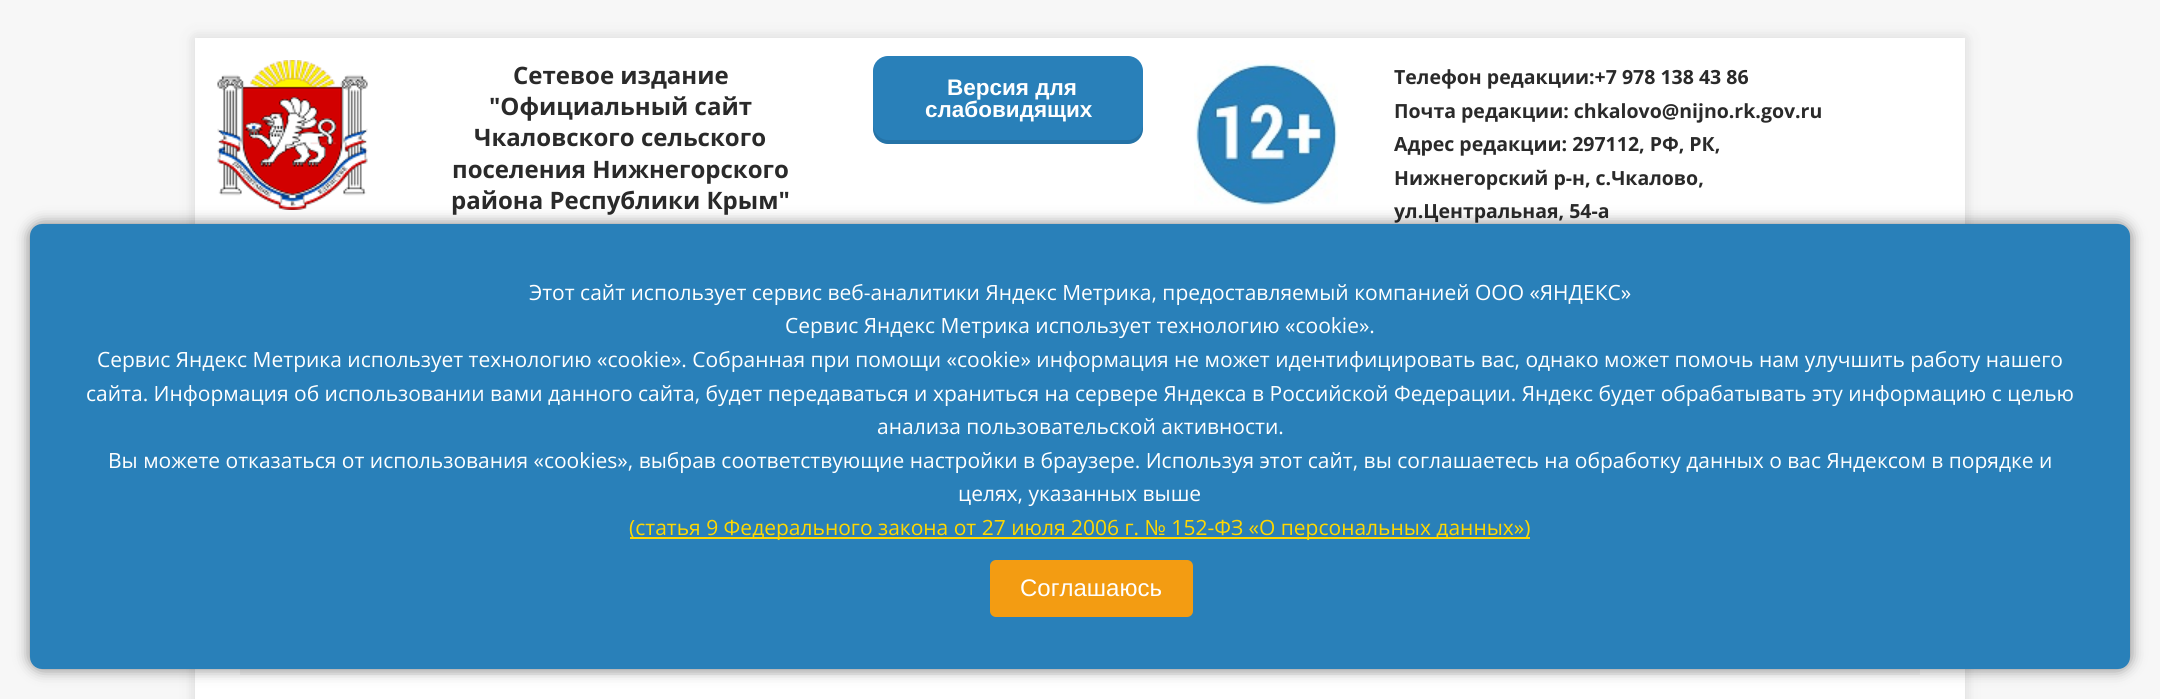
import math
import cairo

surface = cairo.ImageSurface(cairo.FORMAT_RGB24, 2160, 699)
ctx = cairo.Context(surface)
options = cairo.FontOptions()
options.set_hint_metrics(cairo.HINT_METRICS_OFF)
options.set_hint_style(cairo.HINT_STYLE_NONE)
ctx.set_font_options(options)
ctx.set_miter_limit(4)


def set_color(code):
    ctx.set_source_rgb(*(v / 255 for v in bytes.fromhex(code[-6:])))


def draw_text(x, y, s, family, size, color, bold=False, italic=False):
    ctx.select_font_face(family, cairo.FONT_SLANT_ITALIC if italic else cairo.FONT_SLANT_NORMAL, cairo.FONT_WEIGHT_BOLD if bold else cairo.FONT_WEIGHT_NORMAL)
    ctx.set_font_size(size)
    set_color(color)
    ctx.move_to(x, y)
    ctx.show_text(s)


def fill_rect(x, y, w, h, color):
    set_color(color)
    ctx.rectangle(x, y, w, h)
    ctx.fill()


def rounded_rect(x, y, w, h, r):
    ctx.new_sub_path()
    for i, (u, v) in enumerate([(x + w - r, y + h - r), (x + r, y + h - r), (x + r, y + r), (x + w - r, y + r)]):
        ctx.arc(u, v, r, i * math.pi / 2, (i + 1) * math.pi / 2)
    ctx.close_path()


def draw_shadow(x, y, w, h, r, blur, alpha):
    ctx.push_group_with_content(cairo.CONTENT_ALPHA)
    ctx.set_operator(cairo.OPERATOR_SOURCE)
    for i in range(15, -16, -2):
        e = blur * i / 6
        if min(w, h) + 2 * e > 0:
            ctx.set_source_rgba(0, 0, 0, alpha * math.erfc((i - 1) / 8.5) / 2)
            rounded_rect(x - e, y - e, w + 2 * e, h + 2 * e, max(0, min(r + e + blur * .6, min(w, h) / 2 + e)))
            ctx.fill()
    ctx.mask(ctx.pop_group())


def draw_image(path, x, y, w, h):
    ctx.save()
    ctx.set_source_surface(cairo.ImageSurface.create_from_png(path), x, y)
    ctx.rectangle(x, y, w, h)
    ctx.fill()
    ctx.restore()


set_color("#f7f7f7")
ctx.paint()
set_color("#323232")
draw_shadow(195, 38, 1770, 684, 0, 7.5, 0.17)
fill_rect(195, 38, 1770, 186, "#ffffff")
draw_image("assets/img1.png", 217, 60, 151, 150)
draw_text(513, 84, "Сетевое издание", "Open Sans", 24, "#2a2a2a", bold=True)
draw_text(489, 115, "\"Официальный сайт", "Open Sans", 24, "#2a2a2a", bold=True)
draw_text(474, 146, "Чкаловского сельского", "Open Sans", 24, "#2a2a2a", bold=True)
draw_text(452, 178, "поселения Нижнегорского", "Open Sans", 24, "#2a2a2a", bold=True)
draw_text(451, 209, "района Республики Крым\"", "Open Sans", 24, "#2a2a2a", bold=True)
set_color("#2980b9")
rounded_rect(873, 56, 270, 88, 15)
ctx.fill()
ctx.set_source_rgba(0, 0, 0, 0.1)
ctx.new_path()
ctx.move_to(873, 124)
ctx.line_to(873, 129)
ctx.curve_to(873, 137, 880, 144, 888, 144)
ctx.line_to(1128, 144)
ctx.curve_to(1136, 144, 1143, 137, 1143, 129)
ctx.line_to(1143, 124)
ctx.curve_to(1143, 133, 1136, 140, 1128, 140)
ctx.line_to(888, 140)
ctx.curve_to(880, 140, 873, 133, 873, 124)
ctx.close_path()
ctx.fill()
draw_text(947, 95, "Версия для", "Liberation Sans", 22.5, "#ffffff", bold=True)
draw_text(925, 117, "слабовидящих", "Liberation Sans", 22.5, "#ffffff", bold=True)
draw_image("assets/img2.png", 1194, 60, 144, 146)
draw_text(1394, 84, "Телефон редакции:+7 978 138 43 86", "Open Sans", 19.5, "#2a2a2a", bold=True)
draw_text(1394, 118, "Почта редакции: chkalovo@nijno.rk.gov.ru", "Open Sans", 19.5, "#2a2a2a", bold=True)
draw_text(1394, 151, "Адрес редакции: 297112, РФ, РК,", "Open Sans", 19.5, "#2a2a2a", bold=True)
draw_text(1394, 185, "Нижнегорский р-н, с.Чкалово,", "Open Sans", 19.5, "#2a2a2a", bold=True)
draw_text(1394, 218, "ул.Центральная, 54-а", "Open Sans", 19.5, "#2a2a2a", bold=True)
fill_rect(195, 669, 1770, 30, "#ffffff")
fill_rect(240, 669, 1680, 6, "#f5f5f5")
set_color("#000000")
draw_shadow(30, 224, 2100, 445, 12, 7.5, 0.5)
set_color("#2980b9")
rounded_rect(30, 224, 2100, 445, 12)
ctx.fill()
draw_text(529, 300, "Этот сайт использует сервис веб-аналитики Яндекс Метрика, предоставляемый компанией ООО «ЯНДЕКС»", "Open Sans", 21, "#ffffff")
draw_text(785, 333, "Сервис Яндекс Метрика использует технологию «cookie».", "Open Sans", 21, "#ffffff")
draw_text(97, 367, "Сервис Яндекс Метрика использует технологию «cookie». Собранная при помощи «cookie» информация не может идентифицировать вас, однако может помочь нам улучшить работу нашего", "Open Sans", 21, "#ffffff")
draw_text(86, 401, "сайта. Информация об использовании вами данного сайта, будет передаваться и храниться на сервере Яндекса в Российской Федерации. Яндекс будет обрабатывать эту информацию с целью", "Open Sans", 21, "#ffffff")
draw_text(877, 434, "анализа пользовательской активности.", "Open Sans", 21, "#ffffff")
draw_text(108, 468, "Вы можете отказаться от использования «cookies», выбрав соответствующие настройки в браузере. Используя этот сайт, вы соглашаетесь на обработку данных о вас Яндексом в порядке и", "Open Sans", 21, "#ffffff")
draw_text(958, 501, "целях, указанных выше", "Open Sans", 21, "#ffffff")
fill_rect(630, 537, 900, 2, "#ffd700")
draw_text(629, 535, "(статья 9 Федерального закона от 27 июля 2006 г. № 152-ФЗ «О персональных данных»)", "Open Sans", 21, "#ffd700")
set_color("#f39c12")
rounded_rect(990, 560, 203, 57, 6)
ctx.fill()
draw_text(1020, 596, "Соглашаюсь", "Liberation Sans", 24, "#ffffff")
surface.write_to_png("output.png")
